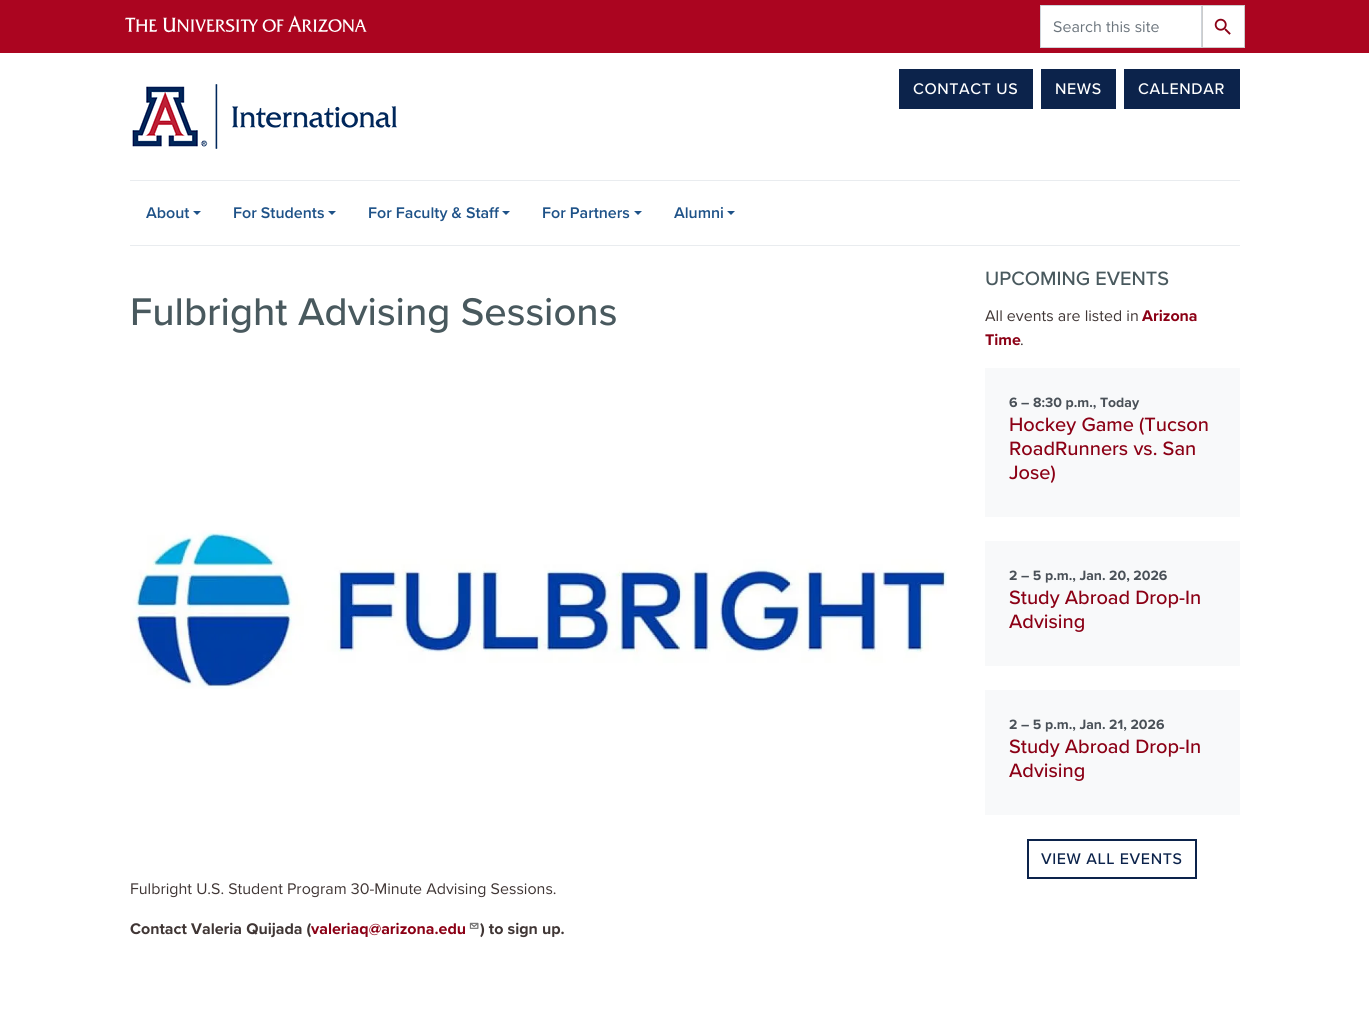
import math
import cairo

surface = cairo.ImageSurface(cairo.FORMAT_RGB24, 1369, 1015)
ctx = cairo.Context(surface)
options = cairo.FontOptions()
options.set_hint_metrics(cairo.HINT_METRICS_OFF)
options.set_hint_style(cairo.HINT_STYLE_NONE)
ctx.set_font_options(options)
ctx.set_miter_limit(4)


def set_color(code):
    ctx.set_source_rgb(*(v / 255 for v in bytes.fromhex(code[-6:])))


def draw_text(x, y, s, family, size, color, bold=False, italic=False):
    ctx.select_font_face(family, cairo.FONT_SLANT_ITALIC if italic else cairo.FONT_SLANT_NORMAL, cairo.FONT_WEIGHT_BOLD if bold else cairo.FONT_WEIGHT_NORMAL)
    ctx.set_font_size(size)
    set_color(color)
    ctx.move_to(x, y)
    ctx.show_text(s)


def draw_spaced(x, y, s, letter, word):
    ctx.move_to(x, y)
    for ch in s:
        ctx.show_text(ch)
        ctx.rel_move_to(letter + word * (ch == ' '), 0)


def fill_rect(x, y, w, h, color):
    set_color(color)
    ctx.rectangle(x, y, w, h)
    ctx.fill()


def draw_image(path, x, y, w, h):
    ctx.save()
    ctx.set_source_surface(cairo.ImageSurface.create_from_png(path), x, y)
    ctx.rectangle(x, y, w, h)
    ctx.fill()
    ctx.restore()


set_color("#ffffff")
ctx.paint()
fill_rect(0, 0, 1369, 53, "#ab0520")
draw_image("assets/img1.png", 125, 15, 242, 18)
set_color("#ffffff")
ctx.rectangle(1040.5, 5.5, 161, 42)
ctx.fill_preserve()
set_color("#ced4da")
ctx.set_line_width(1)
ctx.stroke()
draw_text(1053, 32, "Search this site", "Proxima Nova", 16, "#6c757d")
fill_rect(1203, 6, 41, 41, "#ffffff")
draw_image("assets/img2.png", 1214, 18, 17, 17)
ctx.rectangle(1202.5, 5.5, 42, 42)
set_color("#cccccc")
ctx.stroke()
draw_image("assets/img3.png", 132, 84, 265, 65)
fill_rect(899, 69, 134, 40, "#0c234b")
ctx.select_font_face("Proxima Nova Medium")
set_color("#ffffff")
draw_spaced(913, 94, "CONTACT US", 0.6, 0)
fill_rect(1041, 69, 75, 40, "#0c234b")
set_color("#ffffff")
draw_spaced(1055, 94, "NEWS", 0.6, 0)
fill_rect(1124, 69, 116, 40, "#0c234b")
set_color("#ffffff")
draw_spaced(1138, 94, "CALENDAR", 0.6, 0)
fill_rect(130, 180, 1110, 1, "#e9ecef")
fill_rect(130, 245, 1110, 1, "#e9ecef")
draw_text(146, 218, "About", "Proxima Nova SemiBold", 16, "#1e5288")
ctx.new_path()
ctx.move_to(193, 211)
ctx.line_to(201, 211)
ctx.line_to(197, 215)
ctx.close_path()
ctx.fill()
draw_text(233, 218, "For Students", "Proxima Nova SemiBold", 16, "#1e5288")
ctx.new_path()
ctx.move_to(328, 211)
ctx.line_to(336, 211)
ctx.line_to(332, 215)
ctx.close_path()
ctx.fill()
draw_text(368, 218, "For Faculty & Staff", "Proxima Nova SemiBold", 16, "#1e5288")
ctx.new_path()
ctx.move_to(502, 211)
ctx.line_to(510, 211)
ctx.line_to(506, 215)
ctx.close_path()
ctx.fill()
draw_text(542, 218, "For Partners", "Proxima Nova SemiBold", 16, "#1e5288")
ctx.new_path()
ctx.move_to(634, 211)
ctx.line_to(642, 211)
ctx.line_to(638, 215)
ctx.close_path()
ctx.fill()
draw_text(674, 218, "Alumni", "Proxima Nova SemiBold", 16, "#1e5288")
ctx.new_path()
ctx.move_to(727, 211)
ctx.line_to(735, 211)
ctx.line_to(731, 215)
ctx.close_path()
ctx.fill()
draw_text(130, 325, "Fulbright Advising Sessions", "Proxima Nova Medium", 40, "#49595e")
draw_image("assets/img4.png", 130, 530, 817, 159)
draw_text(130, 894, "Fulbright U.S. Student Program 30-Minute Advising Sessions.", "Proxima Nova", 16, "#403635")
draw_text(130, 934, "Contact Valeria Quijada (", "Proxima Nova", 16, "#403635", bold=True)
draw_text(311, 934, "valeriaq@arizona.edu", "Proxima Nova", 16, "#8b0015", bold=True)
draw_image("assets/img5.png", 469, 922, 10, 7)
draw_text(480, 934, ") to sign up.", "Proxima Nova", 16, "#403635", bold=True)
draw_text(985, 285, "UPCOMING EVENTS", "Proxima Nova Medium", 20, "#49595e")
draw_text(985, 321, "All events are listed in", "Proxima Nova", 16, "#403635")
draw_text(1142, 321, "Arizona", "Proxima Nova", 16, "#8b0015", bold=True)
draw_text(985, 345, "Time", "Proxima Nova", 16, "#8b0015", bold=True)
draw_text(1020, 345, ".", "Proxima Nova", 16, "#403635")
fill_rect(985, 368, 255, 149, "#f8f9fa")
draw_text(1009, 407, "6 – 8:30 p.m., Today", "Proxima Nova", 14, "#495057", bold=True)
draw_text(1009, 431, "Hockey Game (Tucson", "Proxima Nova Medium", 20, "#8b0015")
draw_text(1009, 455, "RoadRunners vs. San", "Proxima Nova Medium", 20, "#8b0015")
draw_text(1009, 479, "Jose)", "Proxima Nova Medium", 20, "#8b0015")
fill_rect(985, 541, 255, 125, "#f8f9fa")
draw_text(1009, 580, "2 – 5 p.m., Jan. 20, 2026", "Proxima Nova", 14, "#495057", bold=True)
draw_text(1009, 604, "Study Abroad Drop-In", "Proxima Nova Medium", 20, "#8b0015")
draw_text(1009, 628, "Advising", "Proxima Nova Medium", 20, "#8b0015")
fill_rect(985, 690, 255, 125, "#f8f9fa")
draw_text(1009, 729, "2 – 5 p.m., Jan. 21, 2026", "Proxima Nova", 14, "#495057", bold=True)
draw_text(1009, 753, "Study Abroad Drop-In", "Proxima Nova Medium", 20, "#8b0015")
draw_text(1009, 777, "Advising", "Proxima Nova Medium", 20, "#8b0015")
ctx.rectangle(1028, 840, 168, 38)
set_color("#0c234b")
ctx.set_line_width(2)
ctx.stroke()
ctx.set_font_size(16)
draw_spaced(1041, 864, "VIEW ALL EVENTS", 0.6, 0)
surface.write_to_png("output.png")
